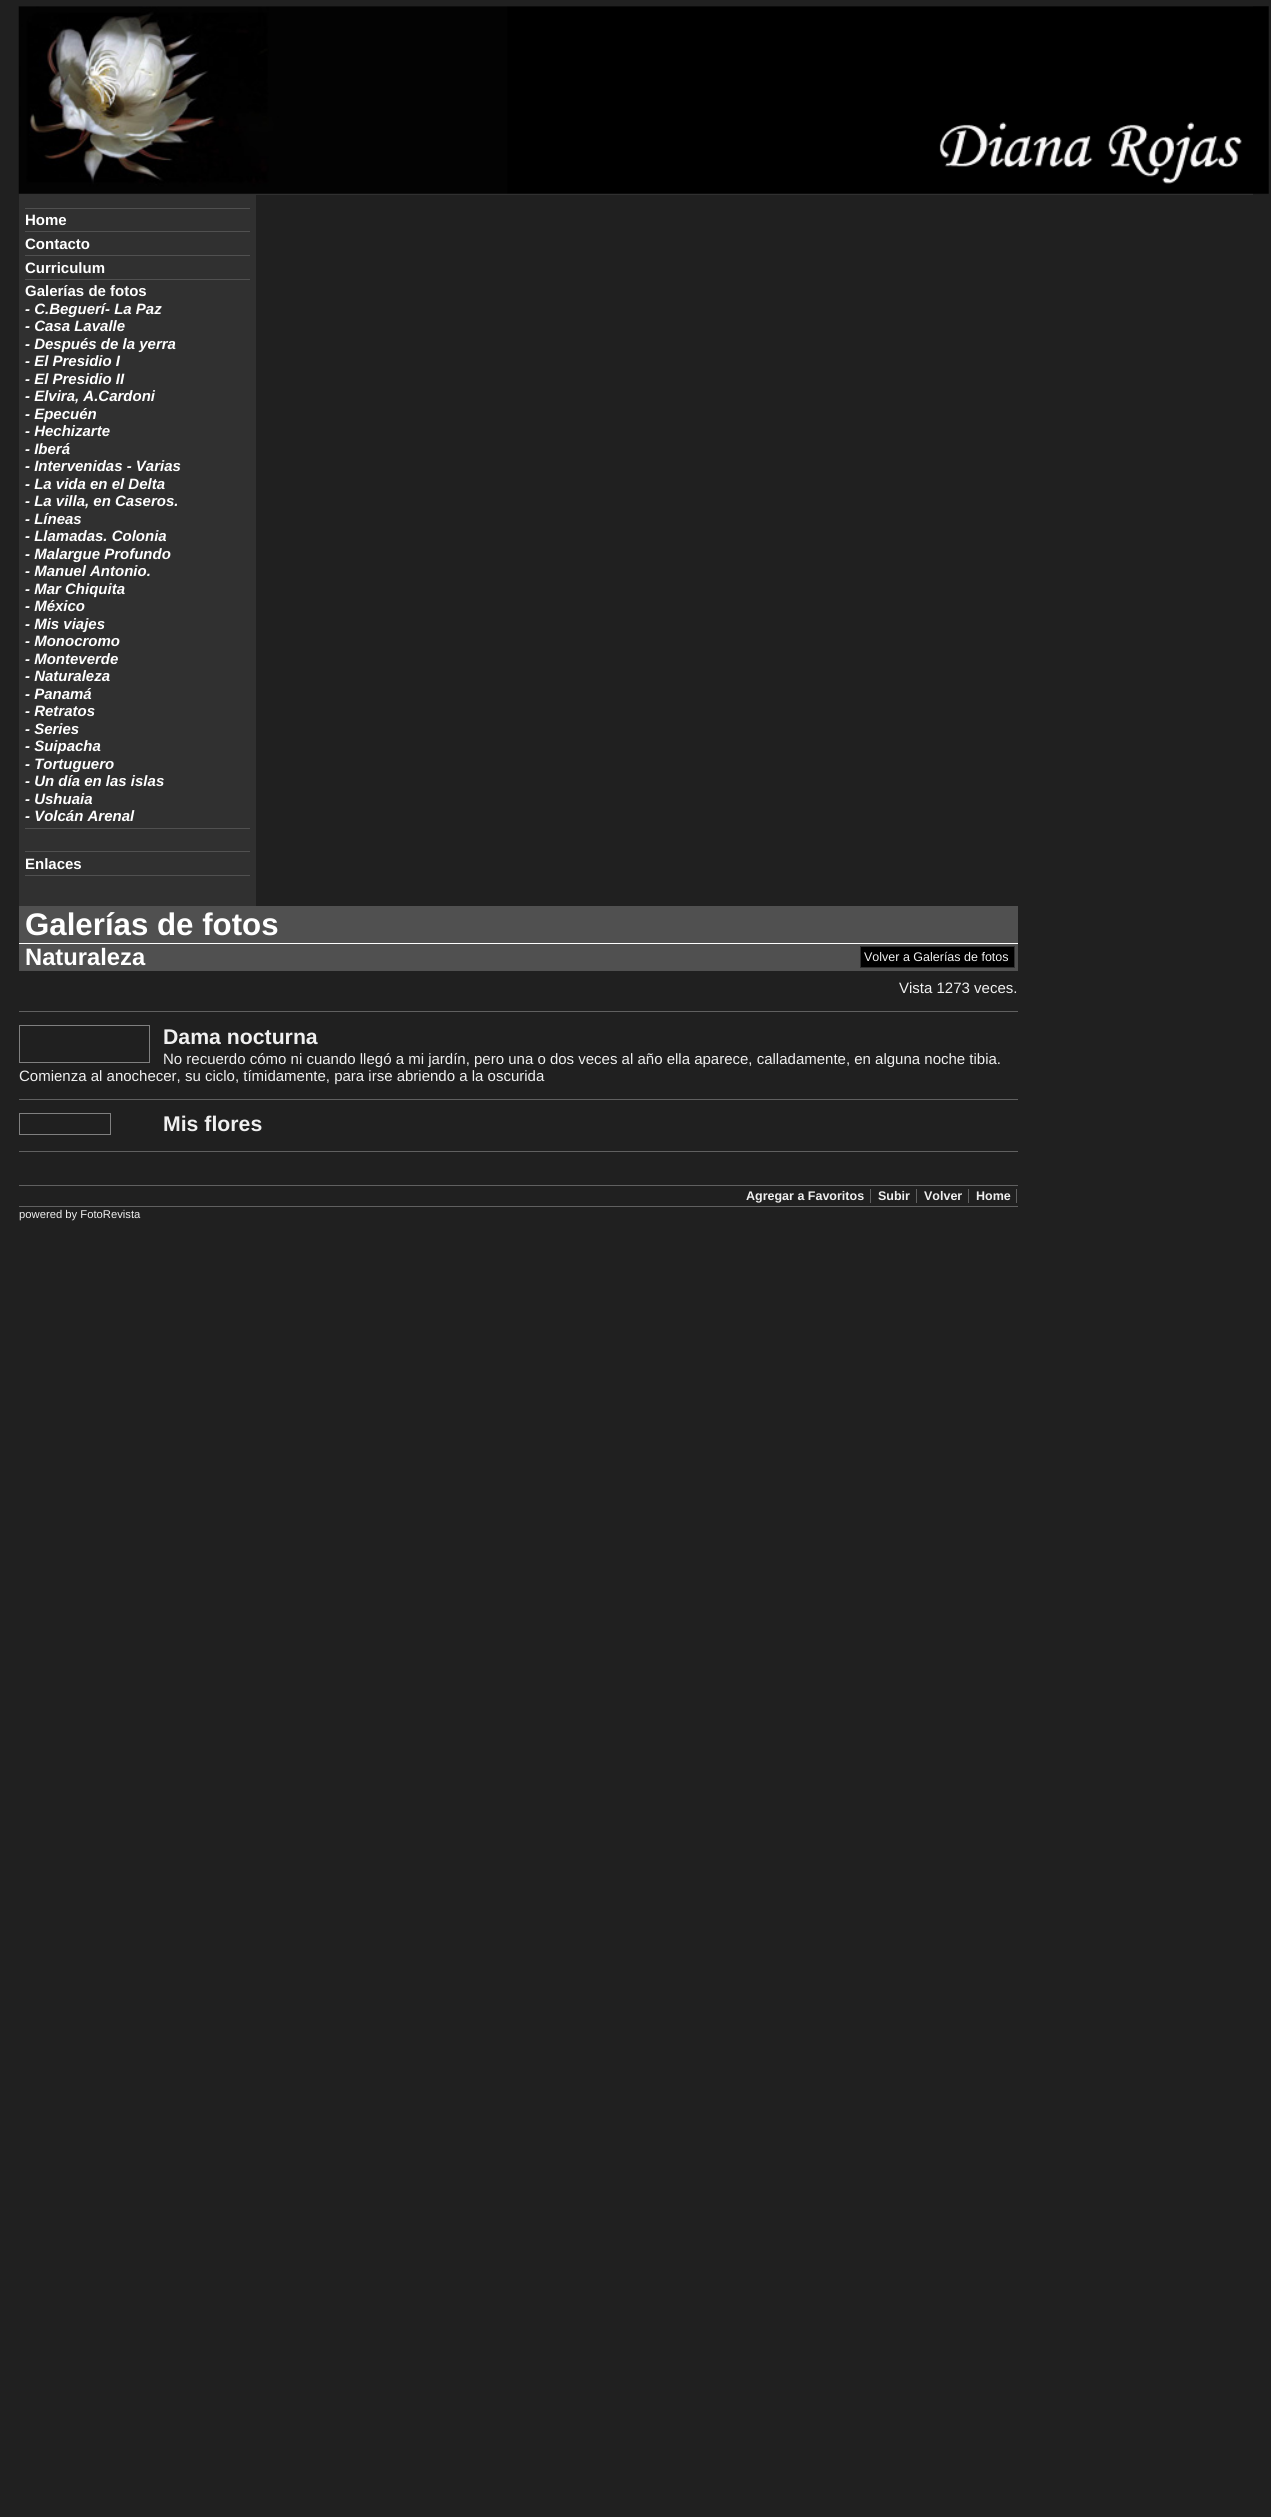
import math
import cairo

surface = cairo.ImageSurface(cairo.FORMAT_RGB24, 1271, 2517)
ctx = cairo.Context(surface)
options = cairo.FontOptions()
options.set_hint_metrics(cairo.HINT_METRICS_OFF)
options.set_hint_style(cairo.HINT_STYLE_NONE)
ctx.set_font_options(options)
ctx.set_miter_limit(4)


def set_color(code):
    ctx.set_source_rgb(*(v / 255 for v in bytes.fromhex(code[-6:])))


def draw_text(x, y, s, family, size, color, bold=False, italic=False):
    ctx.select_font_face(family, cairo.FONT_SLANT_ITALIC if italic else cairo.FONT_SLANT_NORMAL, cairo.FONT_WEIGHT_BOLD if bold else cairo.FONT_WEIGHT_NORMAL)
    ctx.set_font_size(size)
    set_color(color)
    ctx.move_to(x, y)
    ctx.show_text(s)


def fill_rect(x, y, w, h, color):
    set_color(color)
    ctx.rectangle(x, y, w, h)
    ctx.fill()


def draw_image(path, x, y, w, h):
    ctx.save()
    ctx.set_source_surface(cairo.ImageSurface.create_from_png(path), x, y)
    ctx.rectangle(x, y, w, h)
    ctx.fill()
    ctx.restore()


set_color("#202020")
ctx.paint()
fill_rect(19, 6, 1234, 189, "#303030")
draw_image("assets/img1.png", 18, 6, 1251, 188)
fill_rect(19, 195, 237, 711, "#303030")
fill_rect(25, 208, 225, 1, "#505050")
draw_text(25, 225, "Home", "Liberation Sans", 15, "#ffffff", bold=True)
fill_rect(25, 231, 225, 1, "#505050")
draw_text(25, 249, "Contacto", "Liberation Sans", 15, "#ffffff", bold=True)
fill_rect(25, 255, 225, 1, "#505050")
draw_text(25, 273, "Curriculum", "Liberation Sans", 15, "#ffffff", bold=True)
fill_rect(25, 279, 225, 1, "#505050")
draw_text(25, 296, "Galerías de fotos", "Liberation Sans", 15, "#ffffff", bold=True)
draw_text(25, 314, "- C.Beguerí- La Paz", "Liberation Sans", 15, "#ffffff", bold=True, italic=True)
draw_text(25, 331, "- Casa Lavalle", "Liberation Sans", 15, "#ffffff", bold=True, italic=True)
draw_text(25, 349, "- Después de la yerra", "Liberation Sans", 15, "#ffffff", bold=True, italic=True)
draw_text(25, 366, "- El Presidio I", "Liberation Sans", 15, "#ffffff", bold=True, italic=True)
draw_text(25, 384, "- El Presidio II", "Liberation Sans", 15, "#ffffff", bold=True, italic=True)
draw_text(25, 401, "- Elvira, A.Cardoni", "Liberation Sans", 15, "#ffffff", bold=True, italic=True)
draw_text(25, 419, "- Epecuén", "Liberation Sans", 15, "#ffffff", bold=True, italic=True)
draw_text(25, 436, "- Hechizarte", "Liberation Sans", 15, "#ffffff", bold=True, italic=True)
draw_text(25, 454, "- Iberá", "Liberation Sans", 15, "#ffffff", bold=True, italic=True)
draw_text(25, 471, "- Intervenidas - Varias", "Liberation Sans", 15, "#ffffff", bold=True, italic=True)
draw_text(25, 489, "- La vida en el Delta", "Liberation Sans", 15, "#ffffff", bold=True, italic=True)
draw_text(25, 506, "- La villa, en Caseros.", "Liberation Sans", 15, "#ffffff", bold=True, italic=True)
draw_text(25, 524, "- Líneas", "Liberation Sans", 15, "#ffffff", bold=True, italic=True)
draw_text(25, 541, "- Llamadas. Colonia", "Liberation Sans", 15, "#ffffff", bold=True, italic=True)
draw_text(25, 559, "- Malargue Profundo", "Liberation Sans", 15, "#ffffff", bold=True, italic=True)
draw_text(25, 576, "- Manuel Antonio.", "Liberation Sans", 15, "#ffffff", bold=True, italic=True)
draw_text(25, 594, "- Mar Chiquita", "Liberation Sans", 15, "#ffffff", bold=True, italic=True)
draw_text(25, 611, "- México", "Liberation Sans", 15, "#ffffff", bold=True, italic=True)
draw_text(25, 629, "- Mis viajes", "Liberation Sans", 15, "#ffffff", bold=True, italic=True)
draw_text(25, 646, "- Monocromo", "Liberation Sans", 15, "#ffffff", bold=True, italic=True)
draw_text(25, 664, "- Monteverde", "Liberation Sans", 15, "#ffffff", bold=True, italic=True)
draw_text(25, 681, "- Naturaleza", "Liberation Sans", 15, "#ffffff", bold=True, italic=True)
draw_text(25, 699, "- Panamá", "Liberation Sans", 15, "#ffffff", bold=True, italic=True)
draw_text(25, 716, "- Retratos", "Liberation Sans", 15, "#ffffff", bold=True, italic=True)
draw_text(25, 734, "- Series", "Liberation Sans", 15, "#ffffff", bold=True, italic=True)
draw_text(25, 751, "- Suipacha", "Liberation Sans", 15, "#ffffff", bold=True, italic=True)
draw_text(25, 769, "- Tortuguero", "Liberation Sans", 15, "#ffffff", bold=True, italic=True)
draw_text(25, 786, "- Un día en las islas", "Liberation Sans", 15, "#ffffff", bold=True, italic=True)
draw_text(25, 804, "- Ushuaia", "Liberation Sans", 15, "#ffffff", bold=True, italic=True)
draw_text(25, 821, "- Volcán Arenal", "Liberation Sans", 15, "#ffffff", bold=True, italic=True)
fill_rect(25, 828, 225, 1, "#505050")
fill_rect(25, 851, 225, 1, "#505050")
draw_text(25, 869, "Enlaces", "Liberation Sans", 15, "#ffffff", bold=True)
fill_rect(25, 875, 225, 1, "#505050")
fill_rect(19, 906, 999, 37, "#505050")
draw_text(25, 935, "Galerías de fotos", "Liberation Sans", 31.25, "#ffffff", bold=True)
fill_rect(19, 943, 999, 1, "#ffffff")
fill_rect(19, 944, 999, 27, "#505050")
draw_text(25, 965, "Naturaleza", "Liberation Sans", 23.75, "#ffffff", bold=True)
set_color("#000000")
ctx.rectangle(860.5, 946.5, 154, 21)
ctx.fill_preserve()
set_color("#303030")
ctx.set_line_width(1)
ctx.stroke()
draw_text(864, 961, "Volver a Galerías de fotos", "Liberation Sans", 12.5, "#f0f0f0")
draw_text(899, 993, "Vista 1273 veces.", "Liberation Sans", 15, "#f0f0f0")
fill_rect(19, 1011, 999, 1, "#606060")
ctx.rectangle(19.5, 1025.5, 130, 37)
set_color("#808080")
ctx.stroke()
draw_text(163, 1044, "Dama nocturna", "Liberation Sans", 21.25, "#f0f0f0", bold=True)
draw_text(163, 1064, "No recuerdo cómo ni cuando llegó a mi jardín, pero una o dos veces al año ella aparece, calladamente, en alguna noche tibia.", "Liberation Sans", 15, "#f0f0f0")
draw_text(19, 1081, "Comienza al anochecer, su ciclo, tímidamente, para irse abriendo a la oscurida", "Liberation Sans", 15, "#f0f0f0")
fill_rect(19, 1099, 999, 1, "#606060")
ctx.rectangle(19.5, 1113.5, 91, 21)
set_color("#808080")
ctx.stroke()
draw_text(163, 1131, "Mis flores", "Liberation Sans", 21.25, "#f0f0f0", bold=True)
fill_rect(19, 1151, 999, 1, "#606060")
fill_rect(19, 1185, 999, 1, "#606060")
fill_rect(870, 1189, 1, 14, "#606060")
draw_text(746, 1200, "Agregar a Favoritos", "Liberation Sans", 12.5, "#f0f0f0", bold=True)
fill_rect(916, 1189, 1, 14, "#606060")
draw_text(878, 1200, "Subir", "Liberation Sans", 12.5, "#f0f0f0", bold=True)
fill_rect(968, 1189, 1, 14, "#606060")
draw_text(924, 1200, "Volver", "Liberation Sans", 12.5, "#f0f0f0", bold=True)
fill_rect(1016, 1189, 1, 14, "#606060")
draw_text(976, 1200, "Home", "Liberation Sans", 12.5, "#f0f0f0", bold=True)
fill_rect(19, 1206, 999, 1, "#606060")
draw_text(19, 1218, "powered by FotoRevista", "Liberation Sans", 11.25, "#f0f0f0")
surface.write_to_png("output.png")
